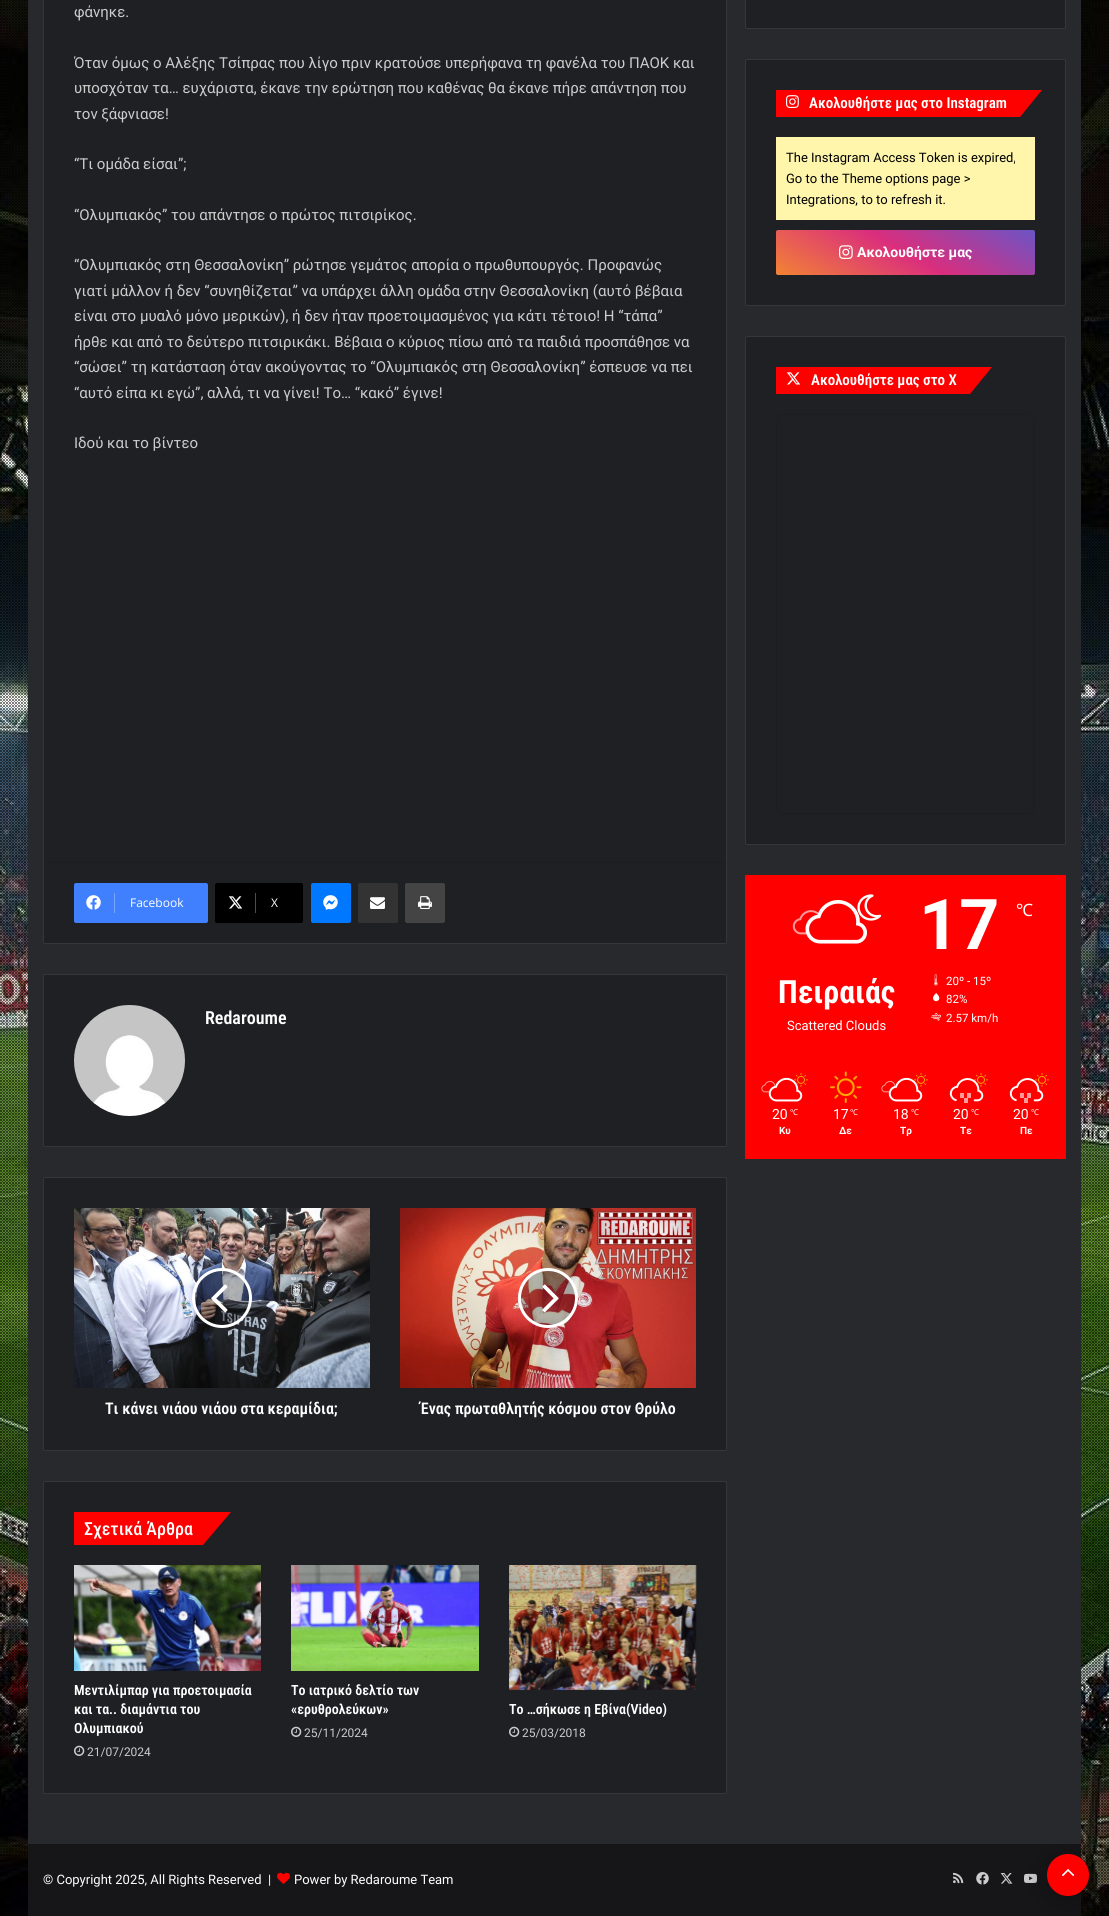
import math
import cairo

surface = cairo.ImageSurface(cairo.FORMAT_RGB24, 1109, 1916)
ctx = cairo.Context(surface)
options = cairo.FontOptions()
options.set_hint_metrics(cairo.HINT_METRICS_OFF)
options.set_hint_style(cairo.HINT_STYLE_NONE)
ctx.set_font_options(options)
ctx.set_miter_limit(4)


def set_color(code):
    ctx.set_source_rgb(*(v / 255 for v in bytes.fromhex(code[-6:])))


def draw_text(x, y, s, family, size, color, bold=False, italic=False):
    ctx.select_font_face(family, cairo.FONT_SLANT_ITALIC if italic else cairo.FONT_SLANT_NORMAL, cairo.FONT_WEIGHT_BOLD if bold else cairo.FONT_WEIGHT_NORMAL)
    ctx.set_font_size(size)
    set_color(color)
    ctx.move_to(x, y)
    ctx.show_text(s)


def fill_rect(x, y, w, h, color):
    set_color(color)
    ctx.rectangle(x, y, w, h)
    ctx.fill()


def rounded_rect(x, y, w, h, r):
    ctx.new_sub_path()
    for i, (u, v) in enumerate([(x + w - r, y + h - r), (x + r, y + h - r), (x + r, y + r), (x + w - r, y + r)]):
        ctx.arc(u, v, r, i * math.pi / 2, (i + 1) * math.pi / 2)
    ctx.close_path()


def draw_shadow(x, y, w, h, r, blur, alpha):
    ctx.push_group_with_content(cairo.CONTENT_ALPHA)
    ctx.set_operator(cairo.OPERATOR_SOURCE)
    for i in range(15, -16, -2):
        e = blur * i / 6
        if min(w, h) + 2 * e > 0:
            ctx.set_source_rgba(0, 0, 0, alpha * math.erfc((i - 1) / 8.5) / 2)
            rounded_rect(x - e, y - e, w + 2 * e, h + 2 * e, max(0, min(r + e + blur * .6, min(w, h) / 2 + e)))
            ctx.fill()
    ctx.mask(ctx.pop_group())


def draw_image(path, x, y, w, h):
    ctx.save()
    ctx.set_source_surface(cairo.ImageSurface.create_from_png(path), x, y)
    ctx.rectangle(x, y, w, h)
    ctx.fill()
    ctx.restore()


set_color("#ffffff")
ctx.paint()
draw_image("assets/img1.png", 0, 0, 1109, 1916)
draw_image("assets/img2.png", 0, 0, 1109, 1916)
fill_rect(28, 0, 1053, 1844, "#27292d")
set_color("#1f2024")
rounded_rect(43.5, -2.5, 683, 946, 1.5)
ctx.fill_preserve()
set_color("#35363a")
ctx.set_line_width(1)
ctx.stroke()
draw_text(74, 17, "φάνηκε.", "Roboto", 15, "#cccccc")
draw_text(74, 68, "Όταν όμως ο Αλέξης Τσίπρας που λίγο πριν κρατούσε υπερήφανα τη φανέλα του ΠΑΟΚ και", "Roboto", 15, "#cccccc")
draw_text(74, 93, "υποσχόταν τα… ευχάριστα, έκανε την ερώτηση που καθένας θα έκανε πήρε απάντηση που", "Roboto", 15, "#cccccc")
draw_text(74, 119, "τον ξάφνιασε!", "Roboto", 15, "#cccccc")
draw_text(74, 169, "“Τι ομάδα είσαι”;", "Roboto", 15, "#cccccc")
draw_text(74, 220, "“Ολυμπιακός” του απάντησε ο πρώτος πιτσιρίκος.", "Roboto", 15, "#cccccc")
draw_text(74, 270, "“Ολυμπιακός στη Θεσσαλονίκη” ρώτησε γεμάτος απορία ο πρωθυπουργός. Προφανώς", "Roboto", 15, "#cccccc")
draw_text(74, 296, "γιατί μάλλον ή δεν “συνηθίζεται” να υπάρχει άλλη ομάδα στην Θεσσαλονίκη (αυτό βέβαια", "Roboto", 15, "#cccccc")
draw_text(74, 321, "είναι στο μυαλό μόνο μερικών), ή δεν ήταν προετοιμασμένος για κάτι τέτοιο! Η “τάπα”", "Roboto", 15, "#cccccc")
draw_text(74, 347, "ήρθε και από το δεύτερο πιτσιρικάκι. Βέβαια ο κύριος πίσω από τα παιδιά προσπάθησε να", "Roboto", 15, "#cccccc")
draw_text(74, 372, "“σώσει” τη κατάσταση όταν ακούγοντας το “Ολυμπιακός στη Θεσσαλονίκη” έσπευσε να πει", "Roboto", 15, "#cccccc")
draw_text(74, 398, "“αυτό είπα κι εγώ”, αλλά, τι να γίνει! Το… “κακό” έγινε!", "Roboto", 15, "#cccccc")
draw_text(74, 448, "Ιδού και το βίντεο", "Roboto", 15, "#cccccc")
fill_rect(44, 942, 682, 1, "#1f2024")
fill_rect(44, 862, 682, 1, "#1c1d20")
set_color("#4080ff")
rounded_rect(74, 883, 134, 40, 2)
ctx.fill()
draw_image("assets/img3.png", 86, 895, 15, 15)
fill_rect(114, 893, 1, 20, "#79a6ff")
draw_text(130, 907, "Facebook", "Open Sans", 12, "#ffffff")
set_color("#000000")
rounded_rect(215, 883, 88, 40, 2)
ctx.fill()
draw_image("assets/img4.png", 228, 896, 15, 13)
fill_rect(255, 893, 1, 20, "#4d4d4d")
draw_text(271, 907, "X", "Open Sans", 12, "#ffffff")
set_color("#0078ff")
rounded_rect(311, 883, 40, 40, 2)
ctx.fill()
draw_image("assets/img5.png", 323, 895, 15, 15)
set_color("#333333")
rounded_rect(358, 883, 40, 40, 2)
ctx.fill()
draw_image("assets/img6.png", 370, 897, 15, 12)
set_color("#444444")
rounded_rect(405, 883, 40, 40, 2)
ctx.fill()
draw_image("assets/img7.png", 418, 896, 14, 13)
set_color("#1f2024")
rounded_rect(43.5, 974.5, 683, 172, 1.5)
ctx.fill_preserve()
set_color("#35363a")
ctx.stroke()
draw_image("assets/img8.png", 74, 1005, 111, 111)
draw_text(205, 1024, "Redaroume", "Roboto Condensed SemiBold", 18, "#ffffff")
set_color("#1f2024")
rounded_rect(43.5, 1177.5, 683, 273, 1.5)
ctx.fill_preserve()
set_color("#35363a")
ctx.stroke()
draw_image("assets/img9.png", 74, 1208, 296, 180)
ctx.set_source_rgba(0, 0, 0, 0.3)
ctx.arc(222, 1298, 28.5, 0, 2 * math.pi)
ctx.fill_preserve()
set_color("#ffffff")
ctx.set_line_width(3)
ctx.stroke()
draw_image("assets/img10.png", 211, 1284, 17, 29)
draw_text(105, 1414, "Τι κάνει νιάου νιάου στα κεραμίδια;", "Roboto Condensed SemiBold", 16, "#ffffff")
draw_image("assets/img11.png", 400, 1208, 296, 180)
ctx.set_source_rgba(0, 0, 0, 0.3)
ctx.arc(548, 1298, 28.5, 0, 2 * math.pi)
ctx.fill_preserve()
set_color("#ffffff")
ctx.stroke()
draw_image("assets/img12.png", 542, 1284, 17, 29)
draw_text(420, 1414, "Ένας πρωταθλητής κόσμου στον Θρύλο", "Roboto Condensed SemiBold", 16, "#ffffff")
set_color("#1f2024")
rounded_rect(43.5, 1481.5, 683, 312, 1.5)
ctx.fill_preserve()
set_color("#35363a")
ctx.set_line_width(1)
ctx.stroke()
fill_rect(74, 1512, 66, 33, "#fd0000")
ctx.new_path()
ctx.move_to(140, 1512)
ctx.line_to(231, 1512)
ctx.line_to(203, 1545)
ctx.line_to(112, 1545)
ctx.close_path()
ctx.fill()
draw_text(84, 1535, "Σχετικά Άρθρα", "Roboto Condensed Medium", 18, "#ffffff")
draw_image("assets/img13.png", 74, 1565, 187, 106)
draw_text(74, 1695, "Mεντιλίμπαρ για προετοιμασία", "Roboto Condensed SemiBold", 14, "#ffffff")
draw_text(74, 1714, "και τα.. διαμάντια του", "Roboto Condensed SemiBold", 14, "#ffffff")
draw_text(74, 1733, "Ολυμπιακού", "Roboto Condensed SemiBold", 14, "#ffffff")
draw_image("assets/img14.png", 74, 1745, 11, 11)
draw_text(87, 1756, "21/07/2024", "Roboto", 12, "#cccccc")
draw_image("assets/img15.png", 291, 1565, 188, 106)
draw_text(291, 1695, "Το ιατρικό δελτίο των", "Roboto Condensed SemiBold", 14, "#ffffff")
draw_text(291, 1714, "«ερυθρολεύκων»", "Roboto Condensed SemiBold", 14, "#ffffff")
draw_image("assets/img14.png", 291, 1726, 11, 11)
draw_text(304, 1737, "25/11/2024", "Roboto", 12, "#cccccc")
draw_image("assets/img16.png", 509, 1565, 188, 125)
draw_text(509, 1714, "Το …σήκωσε η Εβίνα(Video)", "Roboto Condensed SemiBold", 14, "#ffffff")
draw_image("assets/img14.png", 509, 1726, 11, 11)
draw_text(522, 1737, "25/03/2018", "Roboto", 12, "#cccccc")
set_color("#1f2024")
rounded_rect(745.5, -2.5, 320, 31, 1.5)
ctx.fill_preserve()
set_color("#35363a")
ctx.stroke()
set_color("#1f2024")
rounded_rect(745.5, 59.5, 320, 246, 1.5)
ctx.fill_preserve()
set_color("#35363a")
ctx.stroke()
fill_rect(776, 90, 98, 27, "#fd0000")
ctx.new_path()
ctx.move_to(874, 90)
ctx.line_to(1042, 90)
ctx.line_to(1020, 117)
ctx.line_to(851, 117)
ctx.close_path()
ctx.fill()
draw_image("assets/img17.png", 786, 95, 13, 13)
draw_text(809, 108, "Ακολουθήστε μας στο Instagram", "Roboto Condensed SemiBold", 15, "#ffffff")
fill_rect(776, 137, 259, 83, "#fff6ac")
draw_text(786, 162, "The Instagram Access Token is expired,", "Roboto", 13, "#000000")
draw_text(786, 183, "Go to the Theme options page >", "Roboto", 13, "#000000")
draw_text(786, 204, "Integrations, to to refresh it.", "Roboto", 13, "#000000")
gradient = cairo.LinearGradient(864, 325, 947, 180)
gradient.add_color_stop_rgba(0, 0.953, 0.514, 0.204, 1)
gradient.add_color_stop_rgba(0.5, 0.855, 0.18, 0.49, 1)
gradient.add_color_stop_rgba(1, 0.42, 0.329, 0.776, 1)
ctx.set_source(gradient)
rounded_rect(776, 230, 259, 45, 2)
ctx.fill()
draw_image("assets/img18.png", 839, 245, 14, 14)
draw_text(857, 257, "Ακολουθήστε μας", "Roboto", 14, "#ffffff", bold=True)
set_color("#1f2024")
rounded_rect(745.5, 336.5, 320, 508, 1.5)
ctx.fill_preserve()
set_color("#35363a")
ctx.stroke()
fill_rect(776, 367, 83, 27, "#fd0000")
ctx.new_path()
ctx.move_to(859, 367)
ctx.line_to(992, 367)
ctx.line_to(970, 394)
ctx.line_to(836, 394)
ctx.close_path()
ctx.fill()
draw_image("assets/img19.png", 786, 372, 15, 13)
draw_text(811, 385, "Ακολουθήστε μας στο X", "Roboto Condensed SemiBold", 15, "#ffffff")
rounded_rect(776.5, 414.5, 258, 399, 7.5)
set_color("#1c1d20")
ctx.stroke()
fill_rect(745, 875, 321, 284, "#ff0000")
draw_image("assets/img21.png", 857, 894, 25, 27)
draw_image("assets/img22.png", 792, 910, 27, 25)
draw_image("assets/img23.png", 805, 912, 54, 23)
draw_image("assets/img20.png", 805, 900, 63, 44)
draw_text(778, 1003, "Πειραιάς", "Roboto Condensed", 32, "#ffffff", bold=True)
draw_text(787, 1030, "Scattered Clouds", "Roboto", 13, "#ffffff")
draw_text(919, 949, "17", "Roboto", 70, "#ffffff", bold=True)
draw_text(1016, 916, "℃", "Noto Sans", 17, "#ffffff")
draw_image("assets/img24.png", 934, 974, 4, 12)
draw_text(946, 985, "20º - 15º", "Roboto", 11.5, "#ffffff")
draw_image("assets/img25.png", 933, 993, 7, 9)
draw_text(946, 1003, "82%", "Roboto", 11.5, "#ffffff")
draw_image("assets/img26.png", 931, 1013, 10, 8)
draw_text(946, 1022, "2.57 km/h", "Roboto", 11.5, "#ffffff")
draw_image("assets/img27.png", 794, 1073, 14, 14)
draw_image("assets/img29.png", 761, 1081, 15, 12)
draw_image("assets/img30.png", 768, 1083, 29, 10)
draw_image("assets/img28.png", 768, 1077, 35, 25)
draw_text(772, 1119, "20", "Roboto", 14, "#ffffff")
draw_text(790, 1115, "℃", "Noto Sans", 8, "#ffffff")
draw_text(779, 1134, "Κυ", "Roboto", 10, "#ffffff", bold=True)
draw_image("assets/img31.png", 830, 1071, 32, 32)
draw_text(833, 1119, "17", "Roboto", 14, "#ffffff")
draw_text(850, 1115, "℃", "Noto Sans", 8, "#ffffff")
draw_text(839, 1134, "Δε", "Roboto", 10, "#ffffff", bold=True)
draw_image("assets/img27.png", 914, 1073, 14, 14)
draw_image("assets/img29.png", 881, 1081, 15, 12)
draw_image("assets/img30.png", 888, 1083, 29, 10)
draw_image("assets/img28.png", 888, 1077, 35, 25)
draw_text(893, 1119, "18", "Roboto", 14, "#ffffff")
draw_text(911, 1115, "℃", "Noto Sans", 8, "#ffffff")
draw_text(900, 1134, "Τρ", "Roboto", 10, "#ffffff", bold=True)
draw_image("assets/img27.png", 974, 1073, 14, 14)
draw_image("assets/img32.png", 949, 1078, 35, 24)
fill_rect(960, 1093, 4, 5, "#ff9999")
fill_rect(967, 1093, 4, 5, "#ff9999")
fill_rect(964, 1098, 4, 5, "#ff9999")
draw_text(953, 1119, "20", "Roboto", 14, "#ffffff")
draw_text(971, 1115, "℃", "Noto Sans", 8, "#ffffff")
draw_text(960, 1134, "Τε", "Roboto", 10, "#ffffff", bold=True)
draw_image("assets/img27.png", 1035, 1073, 14, 14)
draw_image("assets/img34.png", 1037, 1083, 1, 2)
draw_image("assets/img33.png", 1009, 1078, 35, 24)
fill_rect(1020, 1093, 4, 5, "#ff9999")
fill_rect(1027, 1093, 4, 5, "#ff9999")
fill_rect(1024, 1098, 4, 5, "#ff9999")
draw_text(1013, 1119, "20", "Roboto", 14, "#ffffff")
draw_text(1031, 1115, "℃", "Noto Sans", 8, "#ffffff")
draw_text(1020, 1134, "Πε", "Roboto", 10, "#ffffff", bold=True)
fill_rect(28, 1844, 1053, 72, "#161619")
draw_text(43, 1884, "© Copyright 2025, All Rights Reserved  |", "Roboto", 13, "#ffffff")
draw_image("assets/img35.png", 277, 1872, 13, 12)
draw_text(294, 1884, "Power by Redaroume Team", "Roboto", 13, "#ffffff")
draw_image("assets/img36.png", 953, 1872, 11, 12)
draw_image("assets/img37.png", 976, 1872, 13, 13)
draw_image("assets/img38.png", 1000, 1873, 13, 11)
draw_image("assets/img39.png", 1024, 1873, 13, 10)
set_color("#000000")
draw_shadow(1047, 1859, 42, 42, 21, 12.5, 0.3)
set_color("#ff0000")
ctx.arc(1068, 1875, 21, 0, 2 * math.pi)
ctx.fill()
draw_image("assets/img40.png", 1062, 1869, 13, 8)
surface.write_to_png("output.png")
